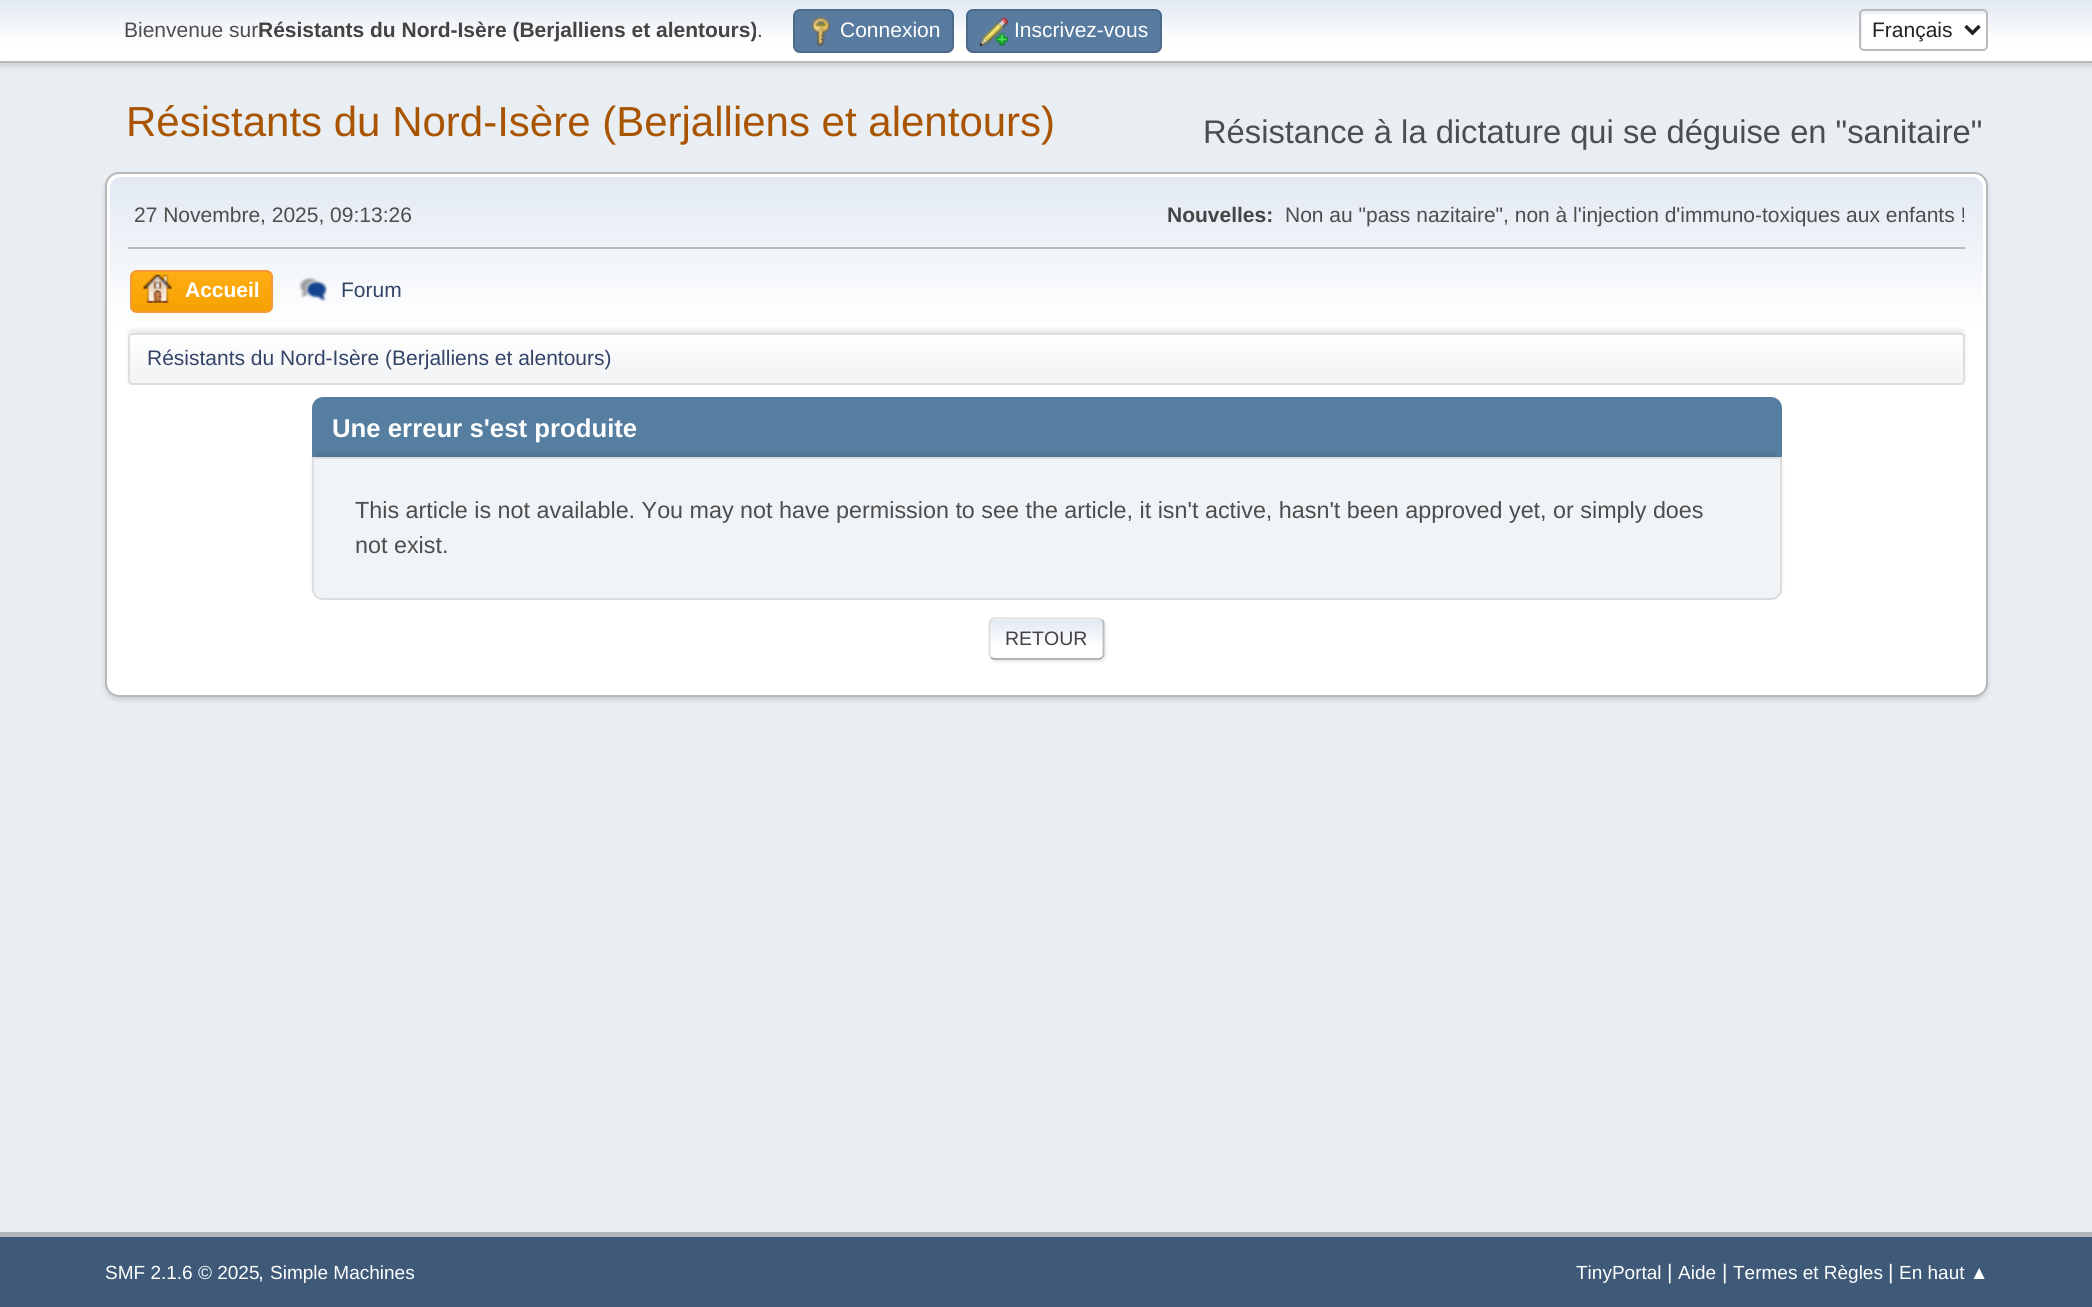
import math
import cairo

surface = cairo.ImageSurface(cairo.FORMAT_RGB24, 2092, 1307)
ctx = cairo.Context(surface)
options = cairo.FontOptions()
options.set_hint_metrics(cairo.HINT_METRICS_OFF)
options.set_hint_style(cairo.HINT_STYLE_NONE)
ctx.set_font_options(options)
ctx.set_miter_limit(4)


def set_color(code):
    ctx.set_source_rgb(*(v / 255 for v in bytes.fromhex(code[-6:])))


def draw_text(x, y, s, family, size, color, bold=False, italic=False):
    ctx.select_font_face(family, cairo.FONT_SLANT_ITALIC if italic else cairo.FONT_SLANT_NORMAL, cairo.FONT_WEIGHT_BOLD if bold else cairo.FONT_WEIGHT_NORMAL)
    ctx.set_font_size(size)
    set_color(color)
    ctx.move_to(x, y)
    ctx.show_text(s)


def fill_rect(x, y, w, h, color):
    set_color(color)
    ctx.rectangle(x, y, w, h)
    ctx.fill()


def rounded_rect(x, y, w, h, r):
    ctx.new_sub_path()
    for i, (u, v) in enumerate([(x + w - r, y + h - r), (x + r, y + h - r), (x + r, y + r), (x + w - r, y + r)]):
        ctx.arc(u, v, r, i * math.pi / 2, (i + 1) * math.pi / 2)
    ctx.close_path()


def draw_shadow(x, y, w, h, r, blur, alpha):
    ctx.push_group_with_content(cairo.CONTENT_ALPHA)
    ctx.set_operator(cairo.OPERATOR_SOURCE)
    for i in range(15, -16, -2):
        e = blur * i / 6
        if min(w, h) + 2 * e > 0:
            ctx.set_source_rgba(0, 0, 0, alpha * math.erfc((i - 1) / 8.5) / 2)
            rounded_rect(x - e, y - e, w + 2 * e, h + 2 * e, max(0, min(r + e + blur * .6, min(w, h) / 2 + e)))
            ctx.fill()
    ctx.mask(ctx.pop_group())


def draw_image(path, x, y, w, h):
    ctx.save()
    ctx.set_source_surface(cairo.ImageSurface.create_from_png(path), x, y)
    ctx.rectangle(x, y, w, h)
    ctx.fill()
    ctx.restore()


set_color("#e9eef2")
ctx.paint()
set_color("#000000")
draw_shadow(0, 2, 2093, 63, 0, 3.5, 0.16)
gradient = cairo.LinearGradient(1047, 0, 1047, 61)
gradient.add_color_stop_rgba(0, 0.886, 0.914, 0.953, 1)
gradient.add_color_stop_rgba(0.7, 1, 1, 1, 1)
ctx.set_source(gradient)
ctx.rectangle(0, 0, 2092, 61)
ctx.fill()
fill_rect(0, 61, 2092, 2, "#bbbbbb")
draw_text(124, 37, "Bienvenue sur", "Liberation Sans", 21, "#4d4d4d")
draw_text(258, 37, "Résistants du Nord-Isère (Berjalliens et alentours)", "Liberation Sans", 21, "#444444", bold=True)
draw_text(757, 37, ".", "Liberation Sans", 21, "#4d4d4d")
set_color("#597b9f")
rounded_rect(794, 10, 159, 42, 6)
ctx.fill_preserve()
set_color("#4a6b8c")
ctx.stroke()
draw_image("assets/img1.png", 811, 17, 19, 29)
draw_text(840, 37, "Connexion", "Liberation Sans", 21, "#ffffff")
set_color("#597b9f")
rounded_rect(967, 10, 194, 42, 6)
ctx.fill_preserve()
set_color("#4a6b8c")
ctx.stroke()
draw_image("assets/img2.png", 980, 17, 28, 29)
draw_text(1014, 37, "Inscrivez-vous", "Liberation Sans", 21, "#ffffff")
rounded_rect(1859, 9, 129, 42, 5)
ctx.fill()
set_color("#ecf1f8")
ctx.new_path()
ctx.move_to(1866, 14)
ctx.line_to(1984, 14)
ctx.line_to(1986, 15)
ctx.curve_to(1986, 13, 1984, 11, 1982, 11)
ctx.line_to(1864, 11)
ctx.curve_to(1862, 11, 1860, 13, 1860, 15)
ctx.line_to(1860, 45)
ctx.curve_to(1860, 46, 1861, 48, 1862, 48)
ctx.line_to(1862, 18)
ctx.curve_to(1862, 16, 1864, 14, 1866, 14)
ctx.close_path()
ctx.fill()
rounded_rect(1860, 10, 127, 40, 4)
set_color("#bbbbbb")
ctx.stroke()
ctx.new_path()
ctx.move_to(1965.5, 26)
ctx.line_to(1972.5, 33)
ctx.line_to(1979.5, 26)
set_color("#222222")
ctx.set_line_width(3.5)
ctx.stroke()
draw_text(1872, 37, "Français", "Liberation Sans", 21, "#222222")
draw_text(126, 136, "Résistants du Nord-Isère (Berjalliens et alentours)", "Liberation Sans", 42, "#a85400")
draw_text(1203, 143, "Résistance à la dictature qui se déguise en \"sanitaire\"", "Liberation Sans", 32.7, "#4d4d4d")
set_color("#000000")
draw_shadow(105, 175, 1883, 525, 14, 2.5, 0.14)
set_color("#ffffff")
rounded_rect(106, 173, 1881, 523, 13)
ctx.fill_preserve()
set_color("#b8b8b8")
ctx.set_line_width(2)
ctx.stroke()
gradient = cairo.LinearGradient(1047, 177, 1047, 389)
gradient.add_color_stop_rgba(0, 0.886, 0.914, 0.953, 1)
gradient.add_color_stop_rgba(0.7, 1, 1, 1, 1)
ctx.set_source(gradient)
ctx.new_path()
ctx.move_to(121, 177)
ctx.line_to(1972, 177)
ctx.curve_to(1978, 177, 1983, 182, 1983, 188)
ctx.line_to(1983, 389)
ctx.line_to(110, 389)
ctx.line_to(110, 188)
ctx.curve_to(110, 182, 115, 177, 121, 177)
ctx.close_path()
ctx.fill()
fill_rect(128, 247, 1837, 2, "#bbbbbb")
draw_text(134, 222, "27 Novembre, 2025, 09:13:26", "Liberation Sans", 21, "#4d4d4d")
draw_text(1167, 222, "Nouvelles:", "Liberation Sans", 21, "#444444", bold=True)
draw_text(1285, 222, "Non au \"pass nazitaire\", non à l'injection d'immuno-toxiques aux enfants !", "Liberation Sans", 21, "#4d4d4d")
ctx.save()
rounded_rect(130, 270, 143, 43, 7)
ctx.clip()
gradient = cairo.LinearGradient(201, 271, 201, 312)
gradient.add_color_stop_rgba(0, 1, 0.682, 0.078, 1)
gradient.add_color_stop_rgba(1, 0.961, 0.631, 0, 1)
ctx.set_source(gradient)
ctx.rectangle(130, 271, 143, 41)
ctx.fill()
ctx.restore()
rounded_rect(131, 271, 141, 41, 6)
set_color("#f49a3a")
ctx.stroke()
draw_image("assets/img3.png", 143, 274, 29, 29)
draw_text(185, 297, "Accueil", "Liberation Sans", 21, "#ffffff", bold=True)
draw_image("assets/img4.png", 299, 277, 29, 25)
draw_text(341, 297, "Forum", "Liberation Sans", 21, "#334466")
set_color("#000000")
draw_shadow(128, 329, 1837, 53, 4, 2, 0.08)
ctx.save()
rounded_rect(128, 333, 1837, 52, 4)
ctx.clip()
gradient = cairo.LinearGradient(1047, 334, 1047, 383)
gradient.add_color_stop_rgba(0, 1, 1, 1, 1)
gradient.add_color_stop_rgba(0.95, 0.945, 0.953, 0.961, 1)
ctx.set_source(gradient)
ctx.rectangle(128, 334, 1837, 49)
ctx.fill()
ctx.restore()
rounded_rect(129, 334, 1835, 50, 3)
set_color("#dddddd")
ctx.stroke()
draw_text(147, 365, "Résistants du Nord-Isère (Berjalliens et alentours)", "Liberation Sans", 21, "#334466")
set_color("#557ea0")
ctx.new_path()
ctx.move_to(323, 397)
ctx.line_to(1771, 397)
ctx.curve_to(1777, 397, 1782, 402, 1782, 408)
ctx.line_to(1782, 459)
ctx.line_to(312, 459)
ctx.line_to(312, 408)
ctx.curve_to(312, 402, 317, 397, 323, 397)
ctx.close_path()
ctx.fill()
draw_text(332, 437, "Une erreur s'est produite", "Liberation Sans", 25.75, "#ffffff", bold=True)
set_color("#000000")
draw_shadow(312, 453, 1470, 144, 11, 2, 0.1)
set_color("#f0f4f7")
ctx.new_path()
ctx.move_to(313, 458)
ctx.line_to(1781, 458)
ctx.line_to(1781, 589)
ctx.curve_to(1781, 594.5, 1776.5, 599, 1771, 599)
ctx.line_to(323, 599)
ctx.curve_to(317.5, 599, 313, 594.5, 313, 589)
ctx.close_path()
ctx.fill_preserve()
set_color("#dddddd")
ctx.stroke()
draw_text(355, 518, "This article is not available. You may not have permission to see the article, it isn't active, hasn't been approved yet, or simply does", "Liberation Sans", 23.33, "#4d4d4d")
draw_text(355, 553, "not exist.", "Liberation Sans", 23.33, "#4d4d4d")
set_color("#dddddd")
draw_shadow(991, 620, 115, 42, 5, 1, 0.57)
set_color("#ffffff")
rounded_rect(989, 618, 115, 42, 5)
ctx.fill()
ctx.save()
rounded_rect(989, 618, 115, 42, 5)
ctx.clip()
gradient = cairo.LinearGradient(1047, 620, 1047, 658)
gradient.add_color_stop_rgba(0, 0.886, 0.914, 0.953, 1)
gradient.add_color_stop_rgba(0.7, 1, 1, 1, 1)
ctx.set_source(gradient)
ctx.rectangle(989, 620, 115, 38)
ctx.fill()
gradient = cairo.LinearGradient(1047, 658, 1047, 697)
gradient.add_color_stop_rgba(0, 0.886, 0.914, 0.953, 1)
gradient.add_color_stop_rgba(0.7, 1, 1, 1, 1)
ctx.set_source(gradient)
ctx.rectangle(989, 658, 115, 2)
ctx.fill()
ctx.restore()
ctx.new_path()
ctx.move_to(1102, 620)
ctx.curve_to(1103, 620.5, 1103.5, 622, 1103.5, 623)
ctx.line_to(1103.5, 654.5)
ctx.curve_to(1103.5, 655.5, 1103, 657, 1102, 657.5)
set_color("#bbbbbb")
ctx.set_line_width(1.8)
ctx.stroke()
ctx.new_path()
ctx.move_to(1102, 657.5)
ctx.line_to(1099.5, 659)
ctx.line_to(993.5, 659)
ctx.line_to(991, 657.5)
set_color("#aaaaaa")
ctx.stroke()
ctx.new_path()
ctx.move_to(991, 657.5)
ctx.curve_to(989, 655.5, 989.5, 651.5, 989.5, 649)
ctx.line_to(989.5, 639)
ctx.curve_to(989.5, 615, 986, 618.5, 1011.5, 618.5)
ctx.line_to(1099, 618.5)
ctx.line_to(1102, 620)
set_color("#dddddd")
ctx.stroke()
draw_text(1005, 645, "RETOUR", "Liberation Sans", 19.5, "#444444")
fill_rect(0, 1237, 2092, 70, "#3e5a78")
fill_rect(0, 1232, 2092, 5, "#b2b6bd")
draw_text(105, 1279, "SMF 2.1.6 © 2025", "Liberation Sans", 19, "#ffffff")
draw_text(258, 1279, ",", "Liberation Sans", 21, "#ffffff")
draw_text(270, 1279, "Simple Machines", "Liberation Sans", 19, "#ffffff")
draw_text(1576, 1279, "TinyPortal", "Liberation Sans", 19, "#ffffff")
draw_text(1667, 1279, "|", "Liberation Sans", 21, "#ffffff")
draw_text(1678, 1279, "Aide", "Liberation Sans", 19, "#ffffff")
draw_text(1722, 1279, "|", "Liberation Sans", 21, "#ffffff")
draw_text(1733, 1279, "Termes et Règles", "Liberation Sans", 19, "#ffffff")
draw_text(1888, 1279, "|", "Liberation Sans", 21, "#ffffff")
draw_text(1899, 1279, "En haut ▲", "Liberation Sans", 19, "#ffffff")
surface.write_to_png("output.png")
